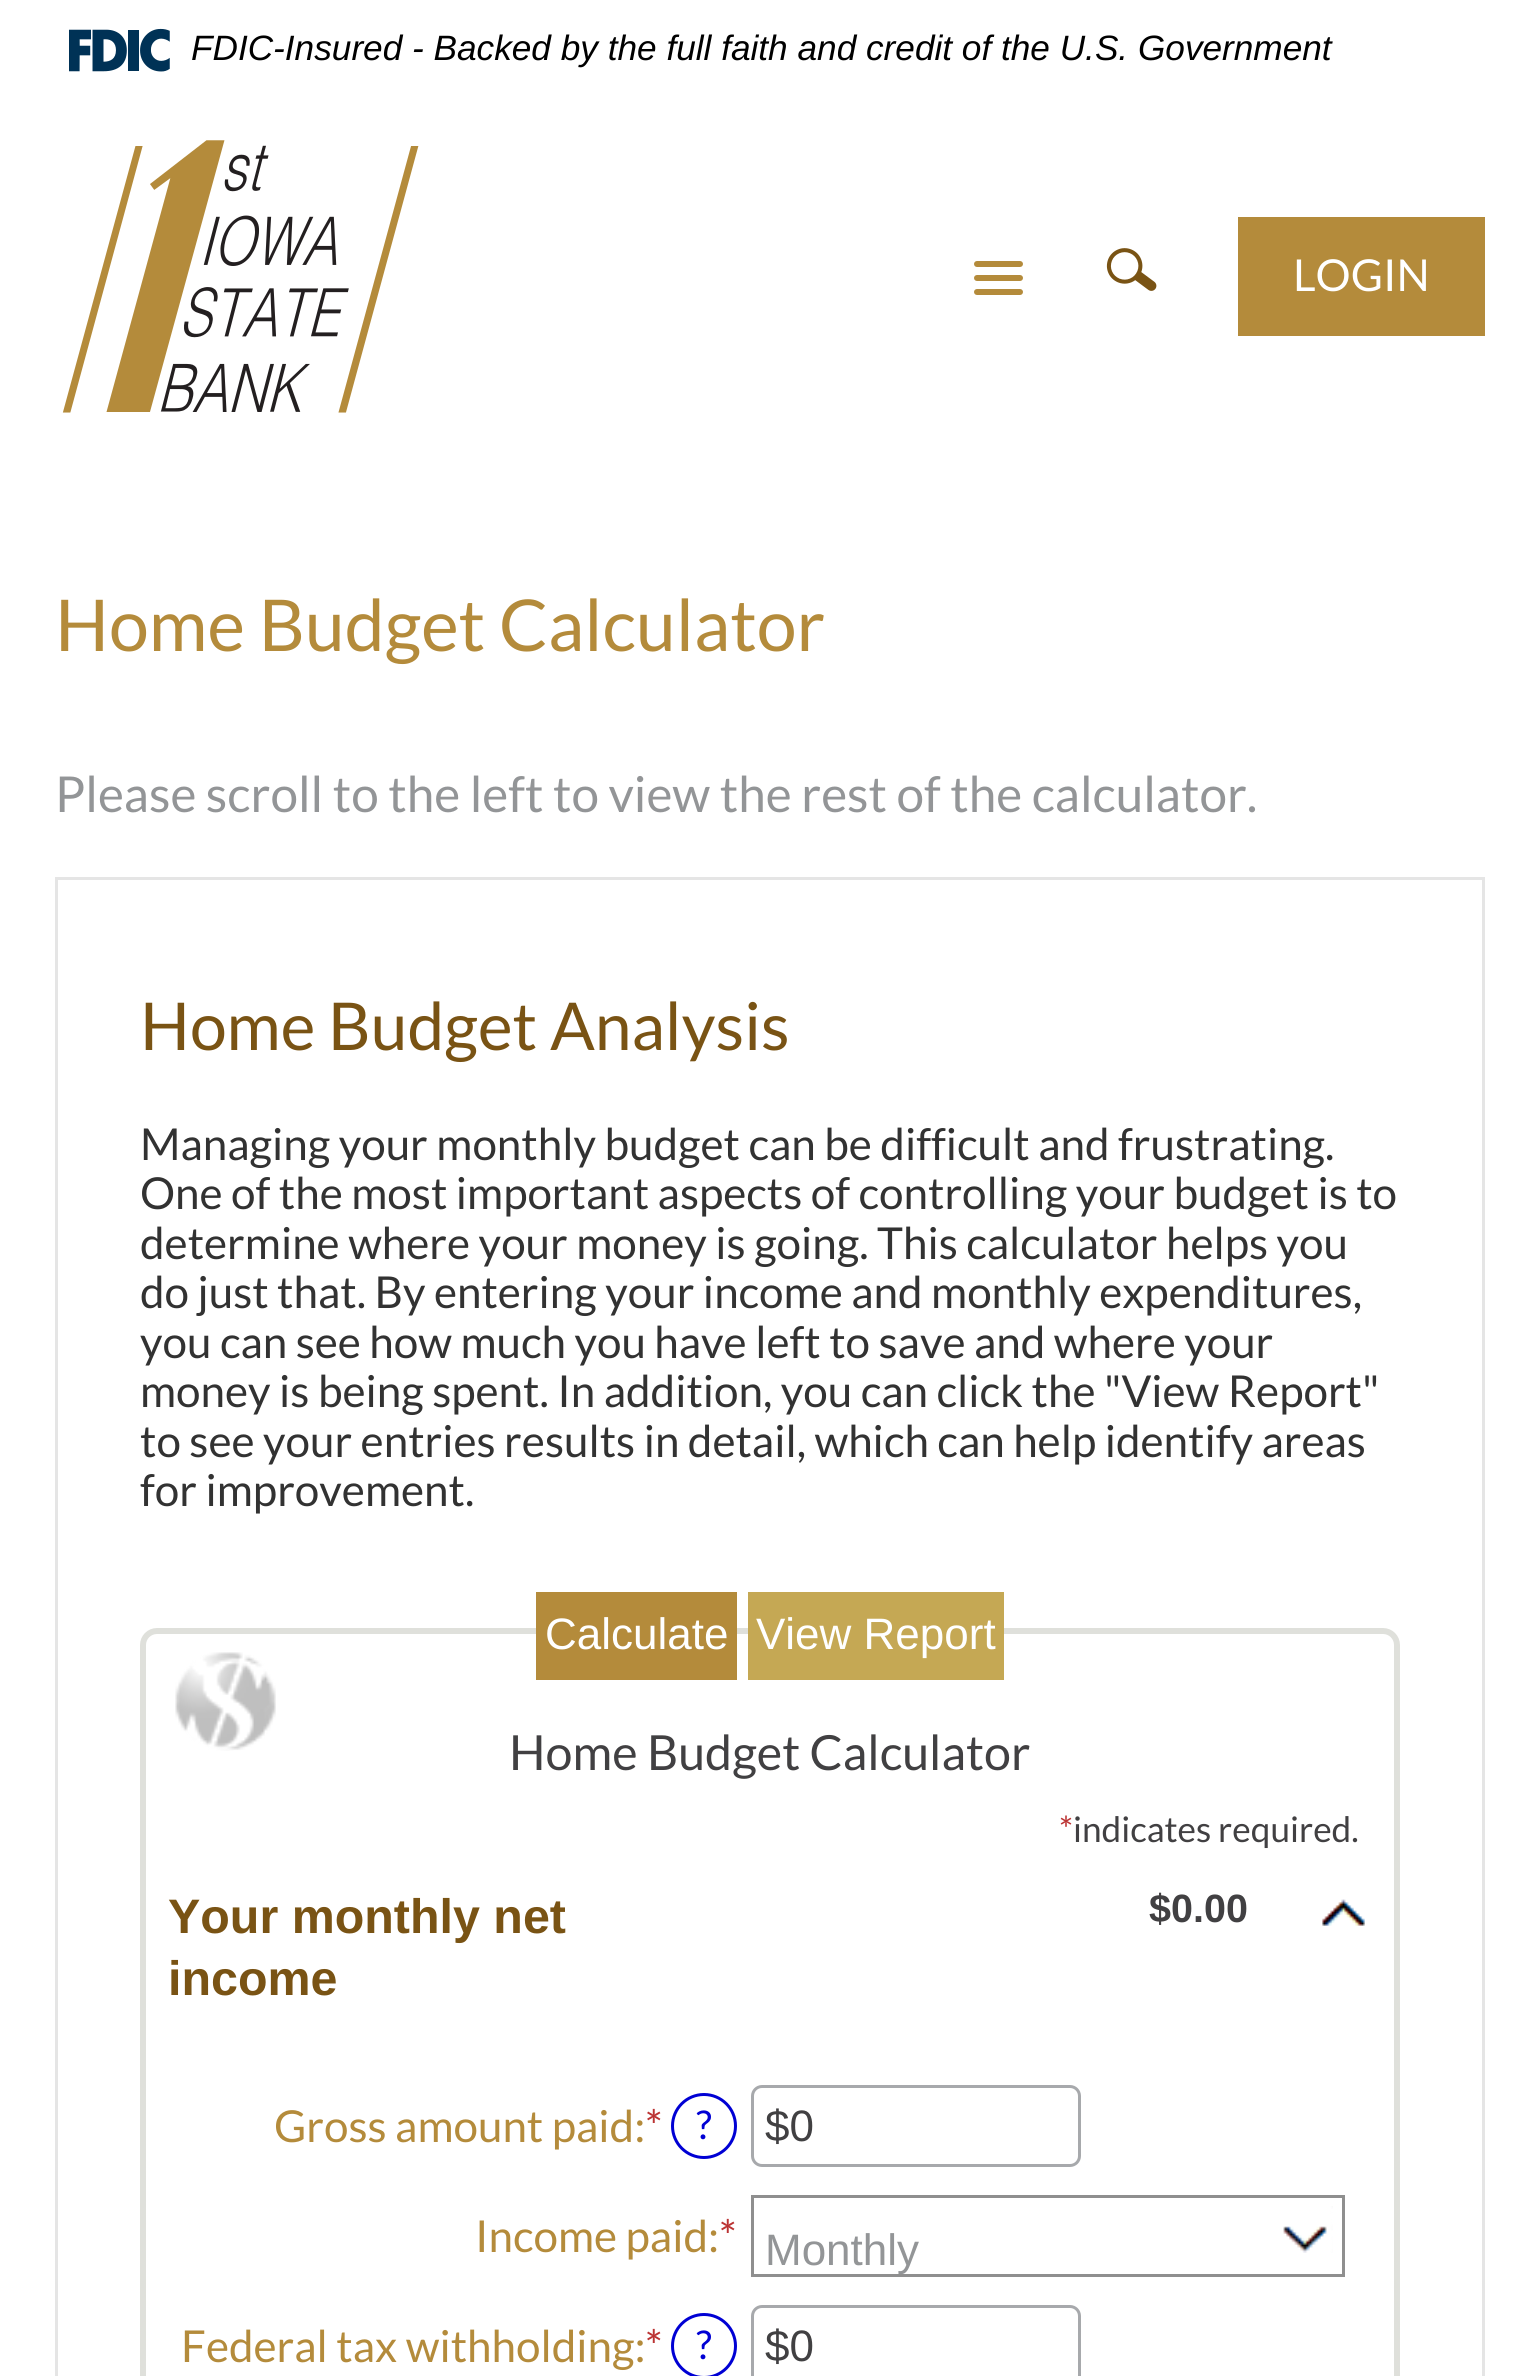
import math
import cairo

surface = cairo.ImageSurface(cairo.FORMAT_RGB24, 1539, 2376)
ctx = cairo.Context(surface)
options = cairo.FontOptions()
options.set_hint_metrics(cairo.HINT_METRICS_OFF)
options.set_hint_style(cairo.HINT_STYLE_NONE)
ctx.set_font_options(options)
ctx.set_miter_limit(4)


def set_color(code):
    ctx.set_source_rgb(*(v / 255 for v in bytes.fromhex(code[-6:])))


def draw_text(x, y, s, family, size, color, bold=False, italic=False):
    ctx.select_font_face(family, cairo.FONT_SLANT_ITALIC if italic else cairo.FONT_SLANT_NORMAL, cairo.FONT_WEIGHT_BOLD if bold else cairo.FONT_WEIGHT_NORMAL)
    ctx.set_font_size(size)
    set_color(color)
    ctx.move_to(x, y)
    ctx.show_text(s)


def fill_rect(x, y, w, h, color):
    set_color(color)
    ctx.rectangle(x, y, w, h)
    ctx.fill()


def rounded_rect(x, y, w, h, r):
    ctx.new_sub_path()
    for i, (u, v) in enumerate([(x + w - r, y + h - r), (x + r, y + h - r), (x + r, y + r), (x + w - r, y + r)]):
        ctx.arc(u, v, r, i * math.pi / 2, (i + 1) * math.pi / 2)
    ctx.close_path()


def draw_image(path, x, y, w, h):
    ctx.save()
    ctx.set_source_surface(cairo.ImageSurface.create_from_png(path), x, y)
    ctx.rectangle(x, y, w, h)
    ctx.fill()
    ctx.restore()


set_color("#ffffff")
ctx.paint()
draw_image("assets/img1.png", 69, 28, 101, 44)
draw_text(191, 60, "FDIC-Insured - Backed by the full faith and credit of the U.S. Government", "Liberation Sans", 35.2, "#000000", italic=True)
draw_image("assets/img2.png", 62, 140, 357, 273)
set_color("#b48b3b")
rounded_rect(974, 261, 49, 6, 3)
ctx.fill()
rounded_rect(974, 275, 49, 6, 3)
ctx.fill()
rounded_rect(974, 289, 49, 6, 3)
ctx.fill()
draw_image("assets/img3.png", 1106, 248, 51, 43)
fill_rect(1238, 217, 247, 119, "#b48b3b")
draw_text(1293, 291, "LOGIN", "Lato", 44, "#ffffff")
draw_text(55, 651, "Home Budget Calculator", "Lato", 71.5, "#b48b3b")
draw_text(55, 812, "Please scroll to the left to view the rest of the calculator.", "Lato", 49.5, "#939597")
ctx.rectangle(56.5, 878.5, 1427, 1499)
set_color("#e5e5e5")
ctx.set_line_width(3)
ctx.stroke()
draw_text(140, 1050, "Home Budget Analysis", "Lato", 66, "#795314")
draw_text(140, 1160, "Managing your monthly budget can be difficult and frustrating.", "Lato", 44, "#323232")
draw_text(140, 1209, "One of the most important aspects of controlling your budget is to", "Lato", 44, "#323232")
draw_text(140, 1259, "determine where your money is going. This calculator helps you", "Lato", 44, "#323232")
draw_text(140, 1308, "do just that. By entering your income and monthly expenditures,", "Lato", 44, "#323232")
draw_text(140, 1358, "you can see how much you have left to save and where your", "Lato", 44, "#323232")
draw_text(140, 1407, "money is being spent. In addition, you can click the \"View Report\"", "Lato", 44, "#323232")
draw_text(140, 1457, "to see your entries results in detail, which can help identify areas", "Lato", 44, "#323232")
draw_text(140, 1506, "for improvement.", "Lato", 44, "#323232")
rounded_rect(143, 1631, 1254, 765, 14)
set_color("#dfe0db")
ctx.set_line_width(6)
ctx.stroke()
fill_rect(536, 1592, 201, 88, "#b48b3b")
draw_text(545, 1649, "Calculate", "Liberation Sans", 44, "#ffffff")
fill_rect(748, 1592, 256, 88, "#c5a854")
draw_text(756, 1649, "View Report", "Liberation Sans", 44, "#ffffff")
draw_image("assets/img4.png", 175, 1652, 101, 99)
draw_text(509, 1770, "Home Budget Calculator", "Lato", 48.4, "#414042")
draw_text(1059, 1842, "*", "Lato", 35.2, "#bb3333")
draw_text(1073, 1842, "indicates required.", "Lato", 35.2, "#414042")
draw_text(168, 1933, "Your monthly net", "Liberation Sans", 48.4, "#795314", bold=True)
draw_text(168, 1995, "income", "Liberation Sans", 48.4, "#795314", bold=True)
draw_text(1149, 1922, "$0.00", "Liberation Sans", 39.5, "#414042", bold=True)
draw_image("assets/img5.png", 1322, 1899, 43, 27)
draw_text(274, 2142, "Gross amount paid:", "Lato", 44, "#b48b3b")
draw_text(645, 2142, "*", "Lato", 44, "#bb3333")
ctx.new_path()
ctx.arc(704, 2126, 31.5, 0, 2 * math.pi)
set_color("#0000d4")
ctx.set_line_width(3)
ctx.stroke()
draw_text(696, 2139, "?", "Lato", 39.5, "#0000d4")
rounded_rect(752.5, 2086.5, 327, 79, 9.5)
set_color("#a7a9ac")
ctx.stroke()
draw_text(765, 2141, "$0", "Liberation Sans", 44, "#414042")
draw_text(475, 2252, "Income paid:", "Lato", 44, "#b48b3b")
draw_text(719, 2252, "*", "Lato", 44, "#bb3333")
draw_image("assets/img6.png", 1283, 2206, 50, 47)
ctx.rectangle(752.5, 2196.5, 591, 79)
set_color("#8f8f8f")
ctx.stroke()
draw_text(765, 2265, "Monthly", "Liberation Sans", 44, "#939597")
draw_text(181, 2362, "Federal tax withholding:", "Lato", 44, "#b48b3b")
draw_text(645, 2362, "*", "Lato", 44, "#bb3333")
ctx.new_path()
ctx.arc(704, 2346, 31.5, 0, 2 * math.pi)
set_color("#0000d4")
ctx.stroke()
draw_text(696, 2359, "?", "Lato", 39.5, "#0000d4")
rounded_rect(752.5, 2306.5, 327, 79, 9.5)
set_color("#a7a9ac")
ctx.stroke()
draw_text(765, 2361, "$0", "Liberation Sans", 44, "#414042")
surface.write_to_png("output.png")
